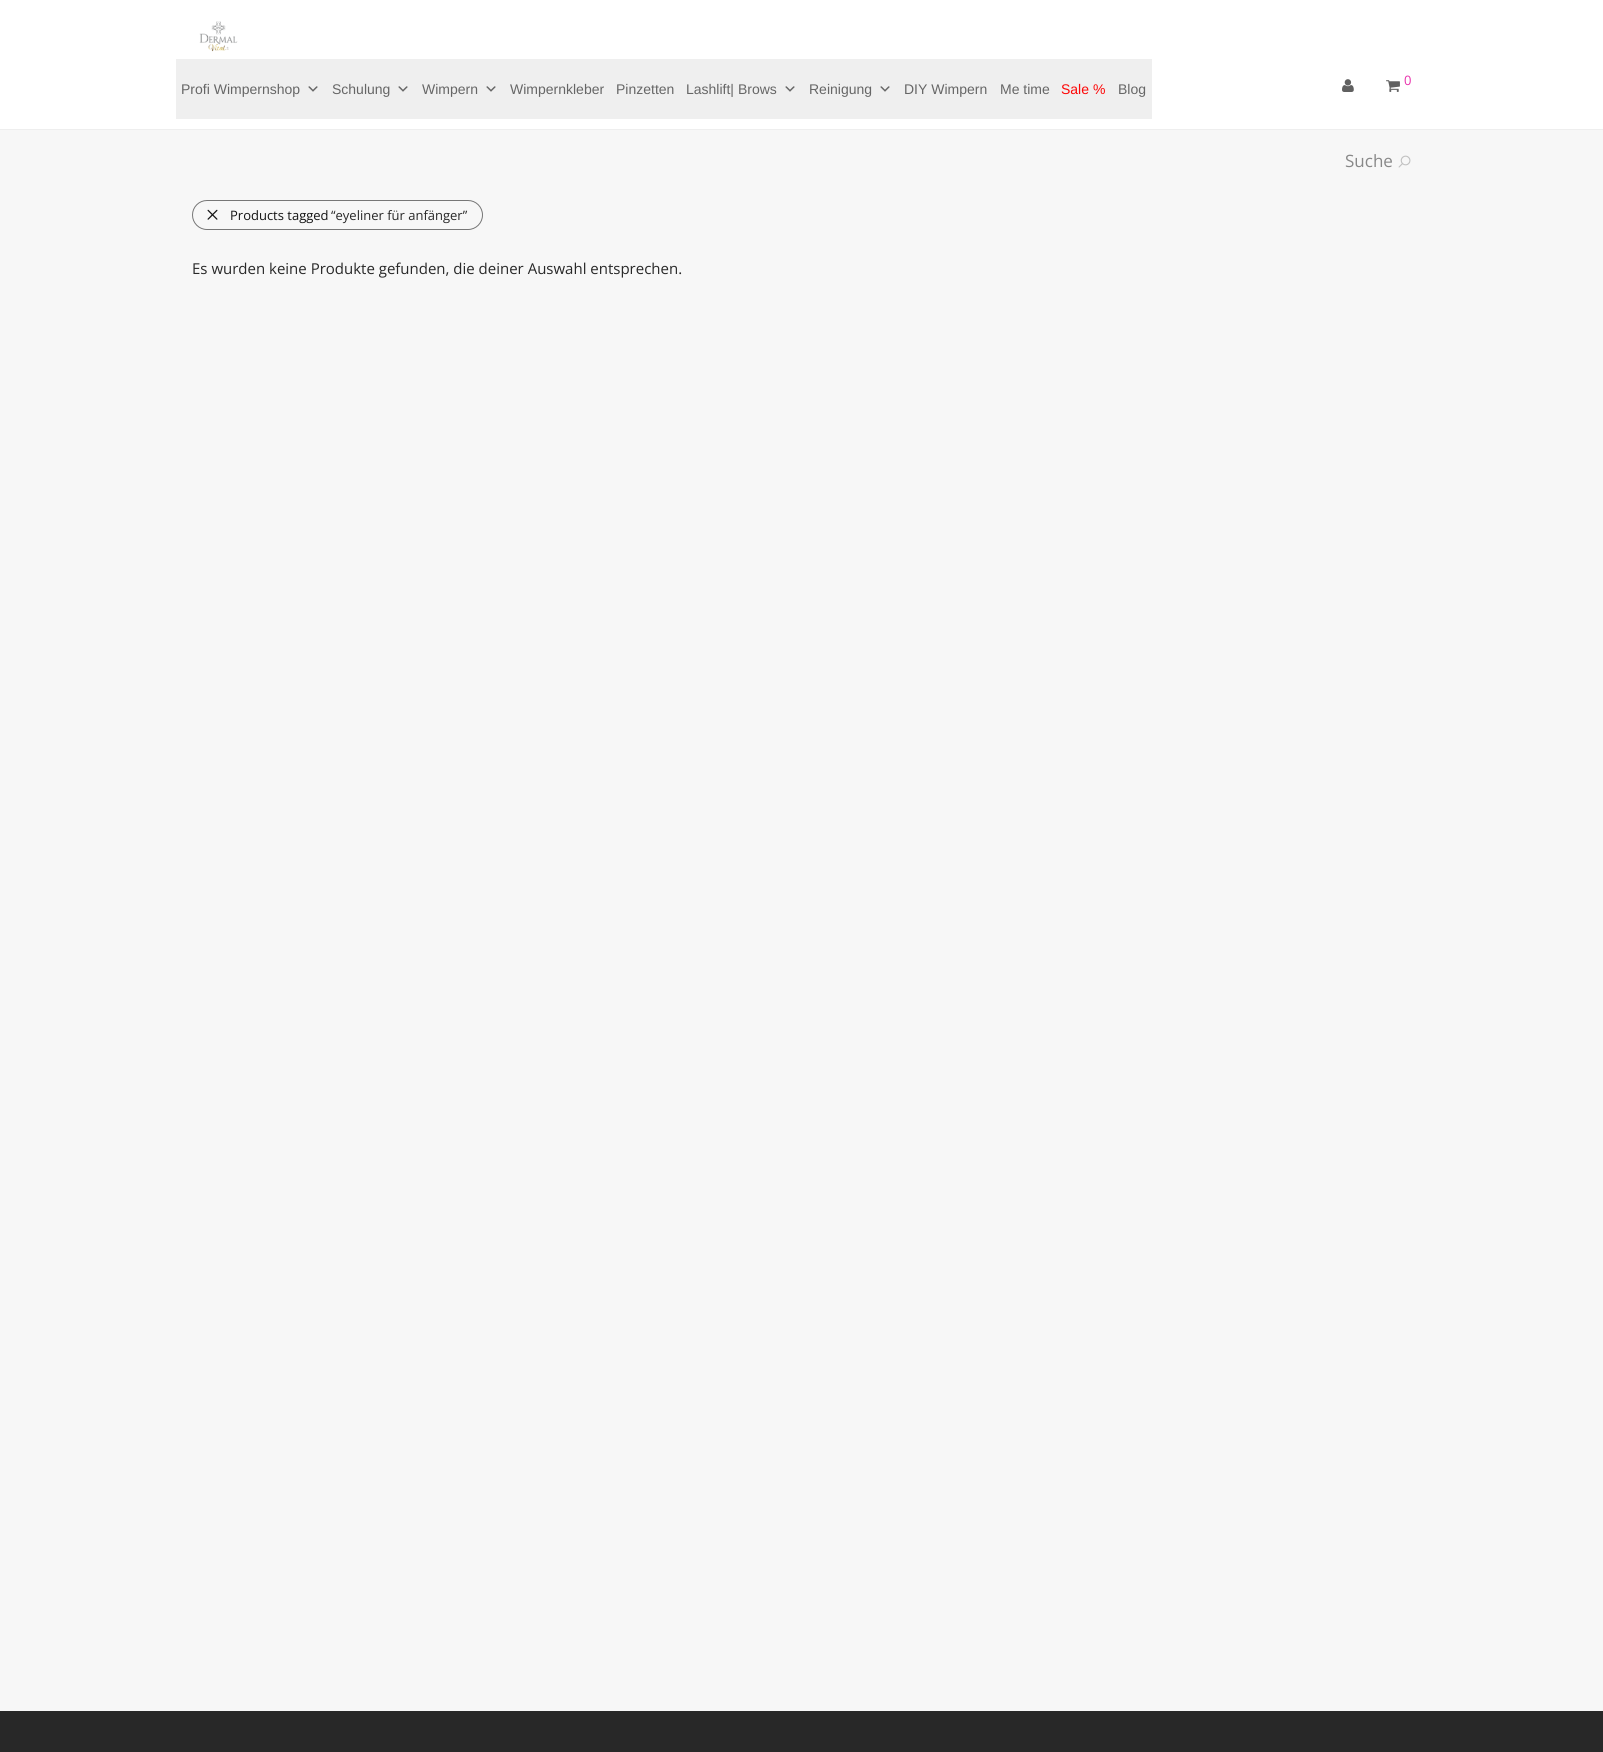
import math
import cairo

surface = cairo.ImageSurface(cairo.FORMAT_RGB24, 1603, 1752)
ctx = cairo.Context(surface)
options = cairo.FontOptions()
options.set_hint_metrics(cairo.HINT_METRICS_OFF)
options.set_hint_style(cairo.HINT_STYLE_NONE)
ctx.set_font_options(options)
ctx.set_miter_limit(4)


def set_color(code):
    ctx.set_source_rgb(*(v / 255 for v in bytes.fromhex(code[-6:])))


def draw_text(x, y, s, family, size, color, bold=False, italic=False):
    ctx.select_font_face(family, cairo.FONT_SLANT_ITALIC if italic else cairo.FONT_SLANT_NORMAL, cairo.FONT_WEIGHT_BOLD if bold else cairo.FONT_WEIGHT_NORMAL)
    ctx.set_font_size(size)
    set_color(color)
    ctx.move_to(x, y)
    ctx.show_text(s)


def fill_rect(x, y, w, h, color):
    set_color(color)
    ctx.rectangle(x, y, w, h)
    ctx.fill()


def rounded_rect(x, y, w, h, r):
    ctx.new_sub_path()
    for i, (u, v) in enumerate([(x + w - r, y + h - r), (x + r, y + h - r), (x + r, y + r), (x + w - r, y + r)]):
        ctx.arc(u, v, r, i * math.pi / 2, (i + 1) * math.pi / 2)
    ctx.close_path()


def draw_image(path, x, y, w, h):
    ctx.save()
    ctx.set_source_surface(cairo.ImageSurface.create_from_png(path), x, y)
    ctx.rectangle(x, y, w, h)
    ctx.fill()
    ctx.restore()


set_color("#f7f7f7")
ctx.paint()
fill_rect(0, 0, 1603, 129, "#ffffff")
fill_rect(0, 129, 1603, 1, "#eeeeee")
draw_image("assets/img1.png", 199, 21, 39, 31)
draw_image("assets/img2.png", 1342, 79, 12, 13)
draw_image("assets/img3.png", 1386, 80, 14, 12)
draw_text(1404, 85, "0", "Open Sans", 13, "#e82fab")
fill_rect(176, 59, 976, 60, "#efefef")
draw_text(181, 94, "Profi Wimpernshop", "Liberation Sans", 14, "#666666")
draw_image("assets/img4.png", 308, 86, 10, 6)
draw_text(332, 94, "Schulung", "Liberation Sans", 14, "#666666")
draw_image("assets/img4.png", 398, 86, 10, 6)
draw_text(422, 94, "Wimpern", "Liberation Sans", 14, "#666666")
draw_image("assets/img4.png", 486, 86, 10, 6)
draw_text(510, 94, "Wimpernkleber", "Liberation Sans", 14, "#666666")
draw_text(616, 94, "Pinzetten", "Liberation Sans", 14, "#666666")
draw_text(686, 94, "Lashlift| Brows", "Liberation Sans", 14, "#666666")
draw_image("assets/img4.png", 785, 86, 10, 6)
draw_text(809, 94, "Reinigung", "Liberation Sans", 14, "#666666")
draw_image("assets/img4.png", 880, 86, 10, 6)
draw_text(904, 94, "DIY Wimpern", "Liberation Sans", 14, "#666666")
draw_text(1000, 94, "Me time", "Liberation Sans", 14, "#666666")
draw_text(1061, 94, "Sale %", "Liberation Sans", 14, "#fd0707")
draw_text(1118, 94, "Blog", "Liberation Sans", 14, "#666666")
draw_text(1345, 167, "Suche", "Open Sans", 17, "#888888")
draw_image("assets/img5.png", 1398, 155, 13, 13)
rounded_rect(192.5, 200.5, 290, 29, 14.5)
set_color("#777777")
ctx.set_line_width(1)
ctx.stroke()
draw_image("assets/img6.png", 207, 209, 11, 11)
draw_text(230, 220, "Products tagged", "Open Sans", 13, "#141414")
draw_text(331, 220, "“eyeliner für anfänger”", "Open Sans", 13, "#282828")
draw_text(192, 274, "Es wurden keine Produkte gefunden, die deiner Auswahl entsprechen.", "Open Sans", 15, "#282828")
fill_rect(0, 1711, 1603, 41, "#282828")
surface.write_to_png("output.png")
